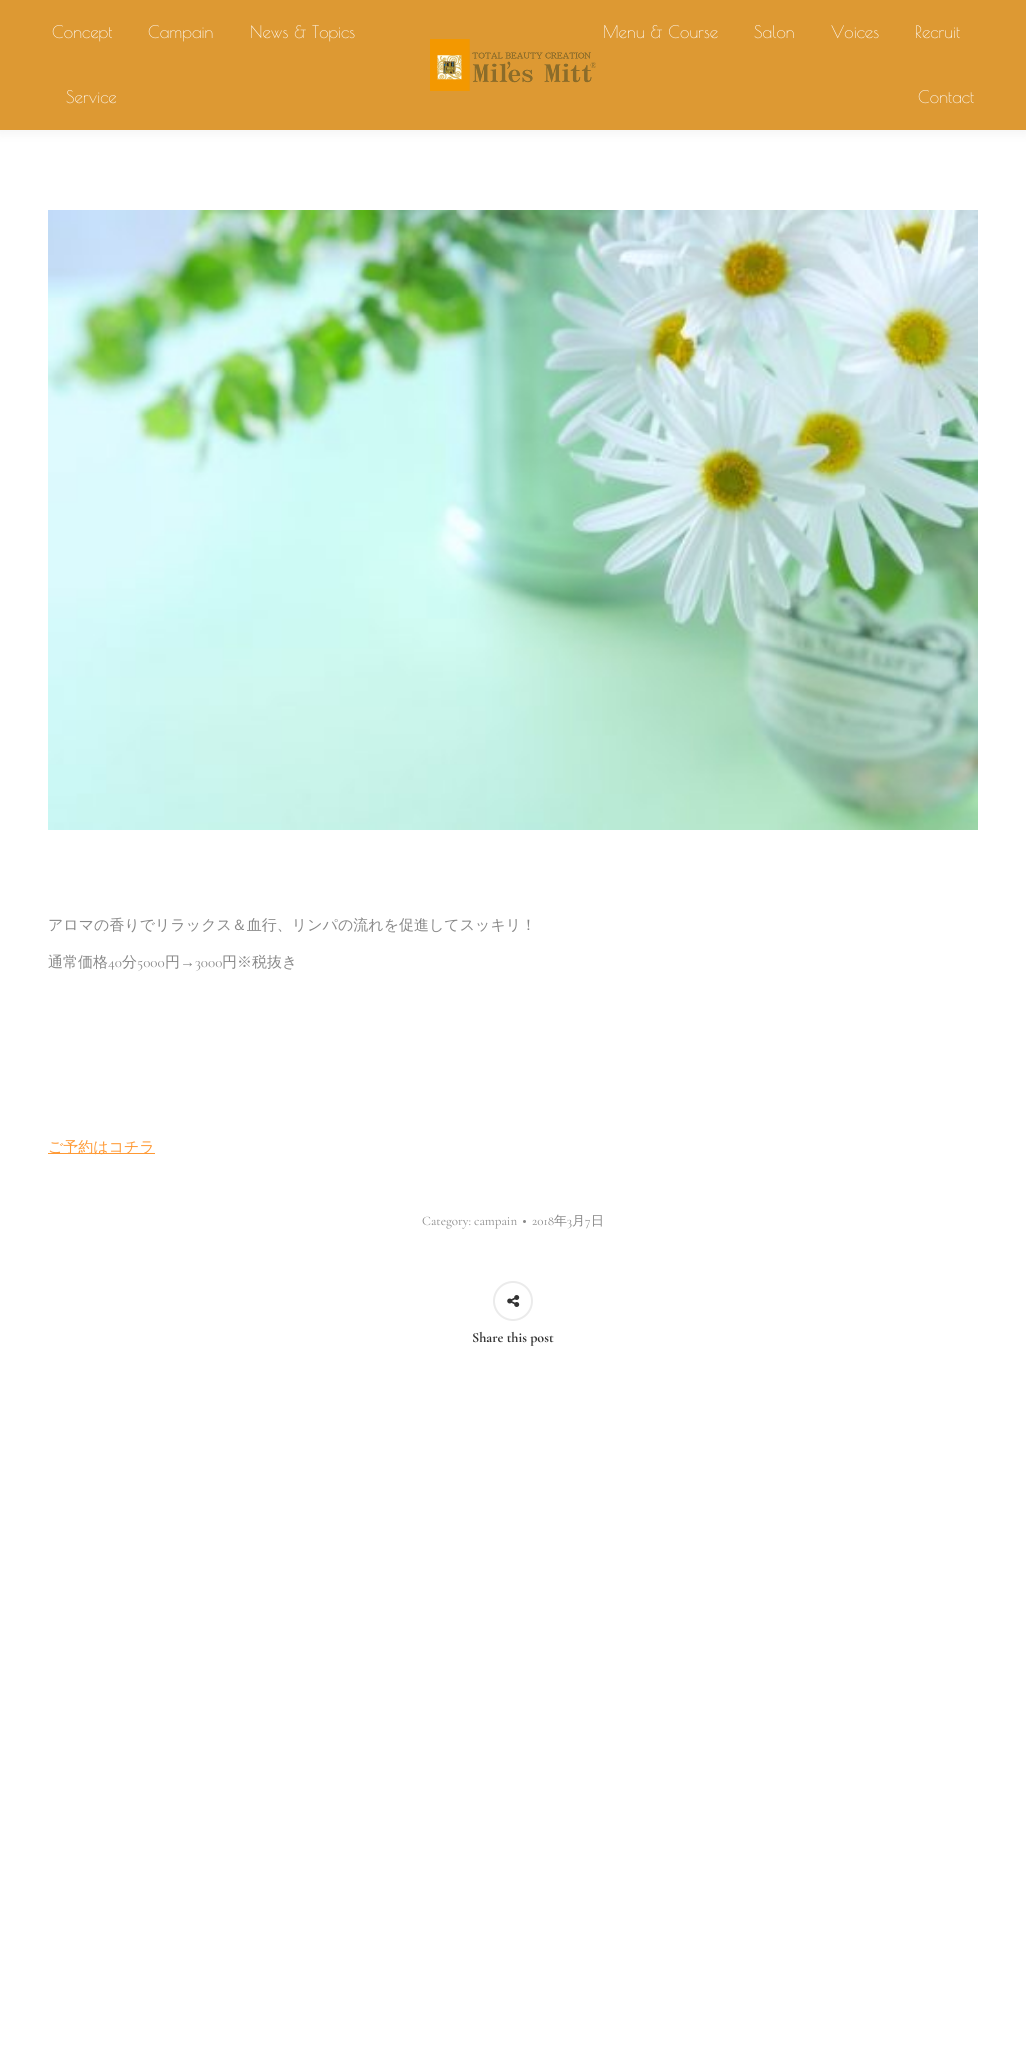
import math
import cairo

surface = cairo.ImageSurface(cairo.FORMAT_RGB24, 1026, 2053)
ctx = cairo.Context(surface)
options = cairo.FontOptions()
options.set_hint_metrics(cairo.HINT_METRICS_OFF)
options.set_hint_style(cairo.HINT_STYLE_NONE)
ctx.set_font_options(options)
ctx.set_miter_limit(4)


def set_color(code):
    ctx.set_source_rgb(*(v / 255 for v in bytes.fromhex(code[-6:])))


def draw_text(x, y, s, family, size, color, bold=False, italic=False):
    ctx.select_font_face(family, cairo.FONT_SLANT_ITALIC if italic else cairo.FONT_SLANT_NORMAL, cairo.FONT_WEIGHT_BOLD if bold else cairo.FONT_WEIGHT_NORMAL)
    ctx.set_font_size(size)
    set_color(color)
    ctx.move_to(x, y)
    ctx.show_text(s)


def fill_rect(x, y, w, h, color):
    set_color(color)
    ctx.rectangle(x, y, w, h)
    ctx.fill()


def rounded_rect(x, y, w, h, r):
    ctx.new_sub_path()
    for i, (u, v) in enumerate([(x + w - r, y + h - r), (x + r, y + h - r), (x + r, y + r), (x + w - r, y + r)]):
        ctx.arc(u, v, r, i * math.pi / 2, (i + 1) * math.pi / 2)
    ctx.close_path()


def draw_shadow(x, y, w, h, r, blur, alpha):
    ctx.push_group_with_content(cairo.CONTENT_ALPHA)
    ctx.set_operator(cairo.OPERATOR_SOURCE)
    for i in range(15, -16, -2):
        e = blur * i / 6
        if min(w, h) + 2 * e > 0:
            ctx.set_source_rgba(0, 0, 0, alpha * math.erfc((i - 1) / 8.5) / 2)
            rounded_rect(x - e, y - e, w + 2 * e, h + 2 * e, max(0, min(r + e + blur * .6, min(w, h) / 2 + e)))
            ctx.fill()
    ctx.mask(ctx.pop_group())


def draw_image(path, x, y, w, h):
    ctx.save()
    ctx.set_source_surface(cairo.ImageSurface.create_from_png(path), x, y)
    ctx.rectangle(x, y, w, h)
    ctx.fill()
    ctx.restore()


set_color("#ffffff")
ctx.paint()
set_color("#000000")
draw_shadow(-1, -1, 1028, 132, 0, 7.5, 0.07)
fill_rect(0, 0, 1026, 130, "#dd9933")
draw_text(52, 38, "Concept", "Poiret One", 17, "#ffffff")
draw_text(148, 38, "Campain", "Poiret One", 17, "#ffffff")
draw_text(250, 38, "News & Topics", "Poiret One", 17, "#ffffff")
draw_text(66, 103, "Service", "Poiret One", 17, "#ffffff")
draw_image("assets/img1.png", 430, 39, 166, 52)
draw_text(603, 38, "Menu & Course", "Poiret One", 17, "#ffffff")
draw_text(754, 38, "Salon", "Poiret One", 17, "#ffffff")
draw_text(831, 38, "Voices", "Poiret One", 17, "#ffffff")
draw_text(915, 38, "Recruit", "Poiret One", 17, "#ffffff")
draw_text(918, 103, "Contact", "Poiret One", 17, "#ffffff")
draw_image("assets/img2.png", 48, 210, 930, 620)
draw_text(48, 930, "アロマの香りでリラックス＆血行、リンパの流れを促進してスッキリ！", "WenQuanYi Zen Hei Medium", 15, "#888888")
draw_text(48, 967, "通常価格", "WenQuanYi Zen Hei Medium", 15, "#888888")
draw_text(108, 967, "40", "Cormorant Garamond", 15, "#888888")
draw_text(122, 967, "分", "WenQuanYi Zen Hei Medium", 15, "#888888")
draw_text(137, 967, "5000", "Cormorant Garamond", 15, "#888888")
draw_text(165, 967, "円", "WenQuanYi Zen Hei Medium", 15, "#888888")
draw_text(180, 967, "→", "Liberation Sans", 15, "#888888")
draw_text(195, 967, "3000", "Cormorant Garamond", 15, "#888888")
draw_text(222, 967, "円※税抜き", "WenQuanYi Zen Hei Medium", 15, "#888888")
fill_rect(48, 1153, 107, 1, "#ff9934")
draw_text(48, 1152, "ご予約はコチラ", "WenQuanYi Zen Hei Medium", 15, "#ff9934")
draw_text(422, 1225, "Category: campain", "Cormorant Garamond", 13, "#888888")
ctx.new_path()
ctx.arc(524.5, 1221.5, 1.5, 0, 2 * math.pi)
ctx.fill()
draw_text(532, 1225, "2018", "Cormorant Garamond", 13, "#888888")
draw_text(554, 1225, "年", "WenQuanYi Zen Hei Medium", 13, "#888888")
draw_text(567, 1225, "3", "Cormorant Garamond", 13, "#888888")
draw_text(572, 1225, "月", "WenQuanYi Zen Hei Medium", 13, "#888888")
draw_text(585, 1225, "7", "Cormorant Garamond", 13, "#888888")
draw_text(591, 1225, "日", "WenQuanYi Zen Hei Medium", 13, "#888888")
ctx.new_path()
ctx.arc(513, 1301, 19, 0, 2 * math.pi)
set_color("#ebebeb")
ctx.stroke()
draw_image("assets/img3.png", 507, 1295, 13, 12)
draw_text(472, 1342, "Share this post", "Cormorant Garamond", 14, "#333333", bold=True)
surface.write_to_png("output.png")
